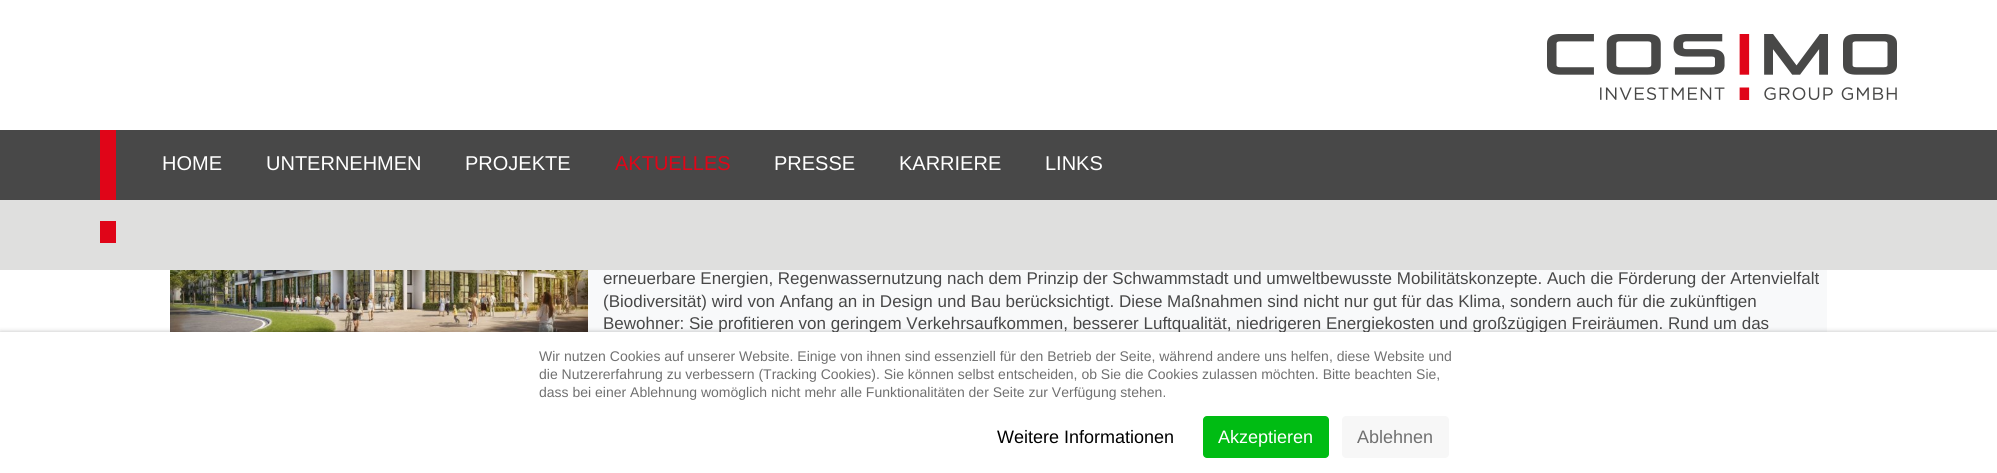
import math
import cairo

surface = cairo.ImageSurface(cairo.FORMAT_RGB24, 1997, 473)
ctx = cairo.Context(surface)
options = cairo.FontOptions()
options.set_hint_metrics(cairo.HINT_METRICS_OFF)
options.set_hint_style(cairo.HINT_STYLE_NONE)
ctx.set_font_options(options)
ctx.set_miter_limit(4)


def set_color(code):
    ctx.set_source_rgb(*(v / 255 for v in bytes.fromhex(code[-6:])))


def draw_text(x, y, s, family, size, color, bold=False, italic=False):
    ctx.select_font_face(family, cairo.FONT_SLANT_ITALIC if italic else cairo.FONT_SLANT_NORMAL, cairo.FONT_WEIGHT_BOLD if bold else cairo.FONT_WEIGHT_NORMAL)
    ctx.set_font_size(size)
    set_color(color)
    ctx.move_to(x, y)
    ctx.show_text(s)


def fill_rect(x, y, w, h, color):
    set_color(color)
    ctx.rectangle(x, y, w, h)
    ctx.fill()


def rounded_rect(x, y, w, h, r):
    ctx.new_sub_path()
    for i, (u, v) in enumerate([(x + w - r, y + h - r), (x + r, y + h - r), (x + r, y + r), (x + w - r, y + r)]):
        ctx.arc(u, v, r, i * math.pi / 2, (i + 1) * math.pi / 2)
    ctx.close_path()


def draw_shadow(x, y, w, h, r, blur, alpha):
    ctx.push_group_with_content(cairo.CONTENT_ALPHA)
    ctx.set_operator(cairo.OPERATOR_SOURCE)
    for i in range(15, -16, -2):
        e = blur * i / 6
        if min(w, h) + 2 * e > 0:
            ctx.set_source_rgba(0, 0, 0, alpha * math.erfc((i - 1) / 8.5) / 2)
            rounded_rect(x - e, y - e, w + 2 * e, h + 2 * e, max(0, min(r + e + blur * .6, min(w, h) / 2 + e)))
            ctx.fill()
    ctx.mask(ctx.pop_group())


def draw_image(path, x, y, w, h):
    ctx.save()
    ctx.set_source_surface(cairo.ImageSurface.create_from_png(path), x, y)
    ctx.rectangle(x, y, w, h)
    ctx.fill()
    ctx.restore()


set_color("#ffffff")
ctx.paint()
draw_image("assets/img1.png", 1547, 34, 350, 66)
fill_rect(0, 130, 1997, 70, "#484848")
fill_rect(0, 200, 1997, 70, "#dfdfde")
draw_image("assets/img2.png", 100, 130, 16, 113)
draw_text(162, 170, "HOME", "Liberation Sans", 20, "#ffffff")
draw_text(266, 170, "UNTERNEHMEN", "Liberation Sans", 20, "#ffffff")
draw_text(465, 170, "PROJEKTE", "Liberation Sans", 20, "#ffffff")
draw_text(615, 170, "AKTUELLES", "Liberation Sans", 20, "#e00518")
draw_text(774, 170, "PRESSE", "Liberation Sans", 20, "#ffffff")
draw_text(899, 170, "KARRIERE", "Liberation Sans", 20, "#ffffff")
draw_text(1045, 170, "LINKS", "Liberation Sans", 20, "#ffffff")
fill_rect(588, 270, 1239, 62, "#f8f9fa")
draw_image("assets/img3.png", 170, 270, 418, 62)
draw_text(603, 284, "erneuerbare Energien, Regenwassernutzung nach dem Prinzip der Schwammstadt und umweltbewusste Mobilitätskonzepte. Auch die Förderung der Artenvielfalt", "Liberation Sans", 17, "#484848")
draw_text(603, 307, "(Biodiversität) wird von Anfang an in Design und Bau berücksichtigt. Diese Maßnahmen sind nicht nur gut für das Klima, sondern auch für die zukünftigen", "Liberation Sans", 17, "#484848")
draw_text(603, 329, "Bewohner: Sie profitieren von geringem Verkehrsaufkommen, besserer Luftqualität, niedrigeren Energiekosten und großzügigen Freiräumen. Rund um das", "Liberation Sans", 17, "#484848")
set_color("#000000")
draw_shadow(0, 332, 1997, 141, 0, 2.5, 0.25)
fill_rect(0, 332, 1997, 141, "#ffffff")
draw_text(539, 361, "Wir nutzen Cookies auf unserer Website. Einige von ihnen sind essenziell für den Betrieb der Seite, während andere uns helfen, diese Website und", "Liberation Sans", 14, "#707070")
draw_text(539, 379, "die Nutzererfahrung zu verbessern (Tracking Cookies). Sie können selbst entscheiden, ob Sie die Cookies zulassen möchten. Bitte beachten Sie,", "Liberation Sans", 14, "#707070")
draw_text(539, 397, "dass bei einer Ablehnung womöglich nicht mehr alle Funktionalitäten der Seite zur Verfügung stehen.", "Liberation Sans", 14, "#707070")
draw_text(997, 443, "Weitere Informationen", "Liberation Sans", 18, "#000000")
set_color("#00bc13")
rounded_rect(1203, 416, 126, 42, 4)
ctx.fill()
draw_text(1218, 443, "Akzeptieren", "Liberation Sans", 18, "#ffffff")
set_color("#f7f7f7")
rounded_rect(1342, 416, 107, 42, 4)
ctx.fill()
draw_text(1357, 443, "Ablehnen", "Liberation Sans", 18, "#707070")
surface.write_to_png("output.png")
